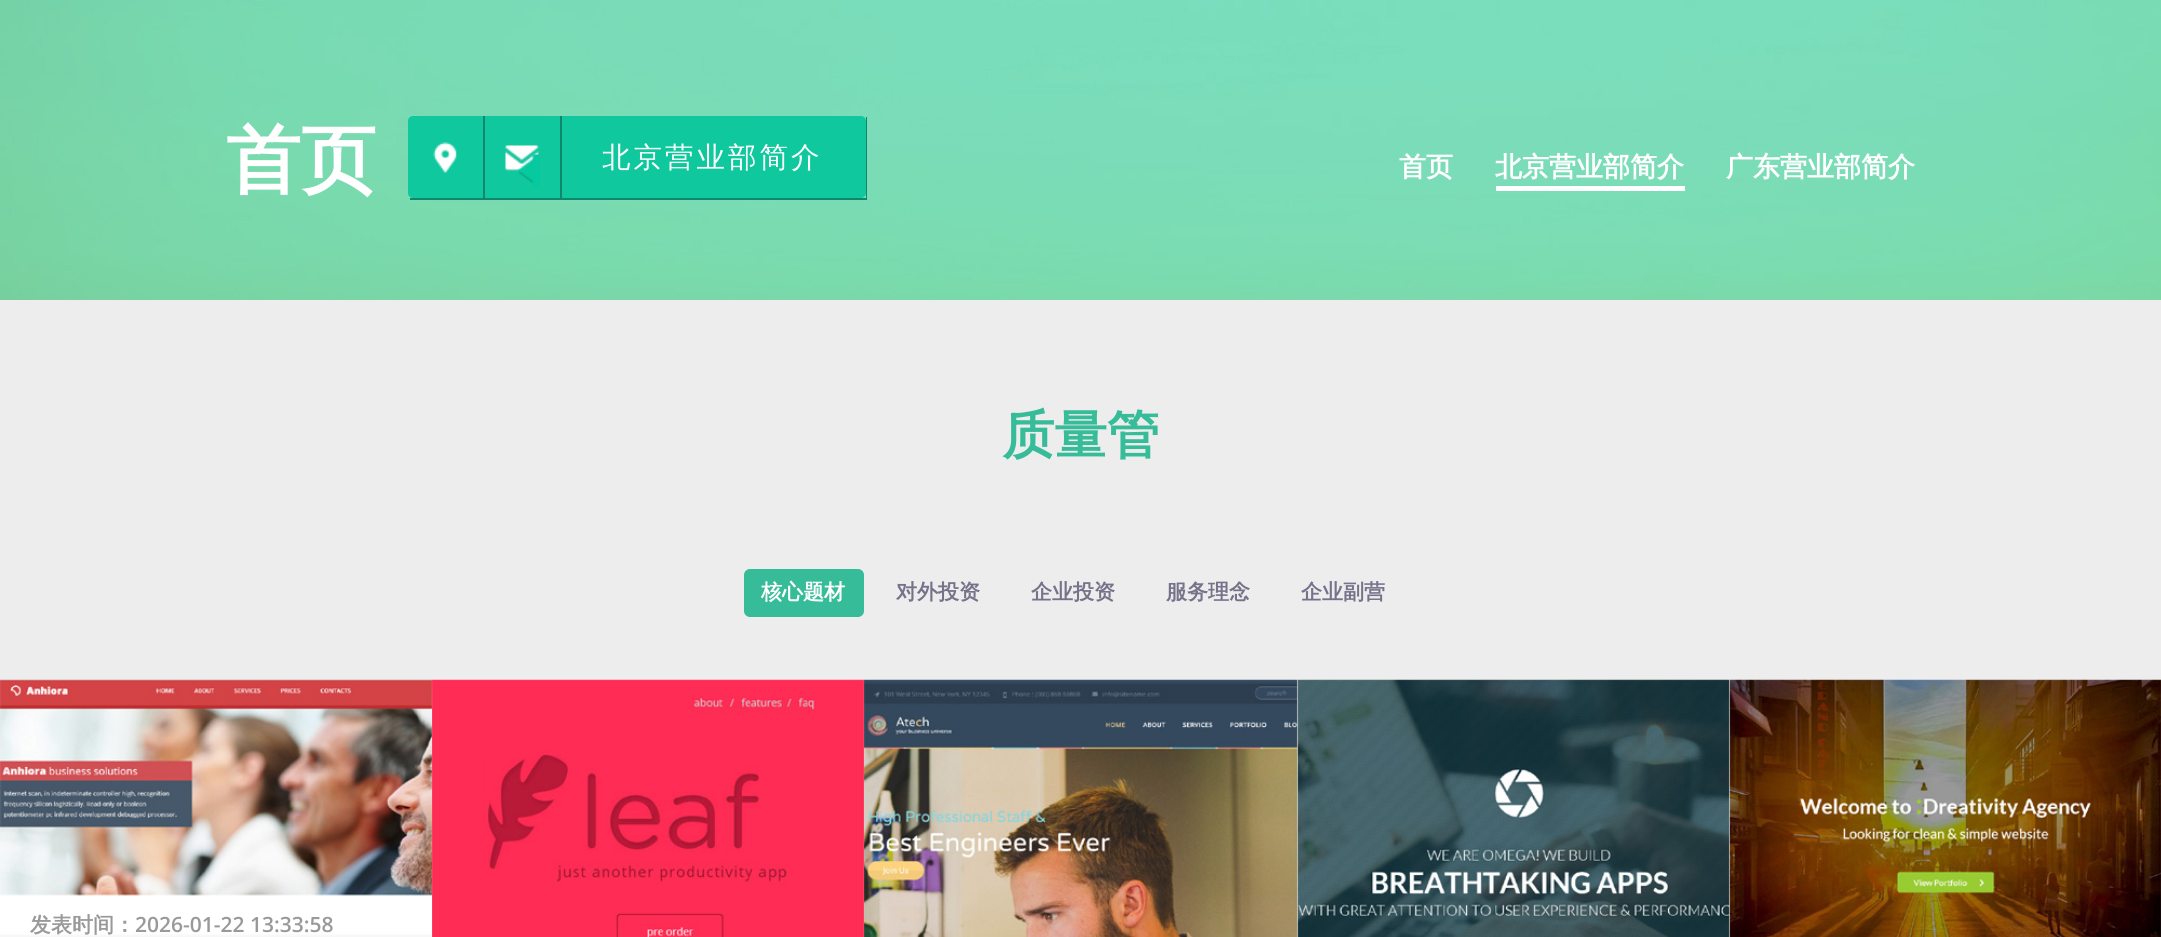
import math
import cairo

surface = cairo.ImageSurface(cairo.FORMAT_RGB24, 2161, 937)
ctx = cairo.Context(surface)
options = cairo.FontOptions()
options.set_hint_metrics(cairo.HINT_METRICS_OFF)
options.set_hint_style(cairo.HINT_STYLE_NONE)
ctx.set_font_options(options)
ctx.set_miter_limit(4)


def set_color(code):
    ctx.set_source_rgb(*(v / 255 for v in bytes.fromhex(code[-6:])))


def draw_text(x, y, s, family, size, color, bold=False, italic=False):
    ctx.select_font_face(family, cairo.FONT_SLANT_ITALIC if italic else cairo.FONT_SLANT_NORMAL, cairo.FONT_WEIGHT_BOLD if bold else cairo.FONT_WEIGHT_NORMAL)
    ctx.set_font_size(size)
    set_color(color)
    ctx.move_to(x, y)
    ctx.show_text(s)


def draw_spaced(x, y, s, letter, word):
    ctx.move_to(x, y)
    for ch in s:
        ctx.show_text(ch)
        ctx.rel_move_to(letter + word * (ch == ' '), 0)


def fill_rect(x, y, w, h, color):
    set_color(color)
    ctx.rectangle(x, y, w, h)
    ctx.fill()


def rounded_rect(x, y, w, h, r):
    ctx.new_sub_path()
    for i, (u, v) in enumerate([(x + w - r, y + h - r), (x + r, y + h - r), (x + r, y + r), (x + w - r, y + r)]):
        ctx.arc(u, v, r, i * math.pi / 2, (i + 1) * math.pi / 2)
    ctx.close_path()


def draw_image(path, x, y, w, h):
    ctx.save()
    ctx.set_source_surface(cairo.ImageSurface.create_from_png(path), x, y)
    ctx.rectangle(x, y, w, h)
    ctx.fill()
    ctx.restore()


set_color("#ededed")
ctx.paint()
draw_image("assets/img1.png", 0, 0, 2161, 300)
draw_text(226, 186, "首页", "WenQuanYi Zen Hei", 75, "#ffffff", bold=True)
set_color("#0fc89e")
rounded_rect(408, 116, 458, 82, 5)
ctx.fill()
set_color("#10866c")
ctx.new_path()
ctx.move_to(410, 198)
ctx.line_to(410, 200)
ctx.line_to(867, 200)
ctx.line_to(867, 117)
ctx.line_to(866, 117)
ctx.line_to(866, 198)
ctx.close_path()
ctx.fill()
draw_image("assets/img4.png", 505, 145, 34, 26)
draw_image("assets/img2.png", 517, 154, 23, 34)
fill_rect(483, 116, 2, 82, "#10866c")
draw_image("assets/img3.png", 433, 142, 24, 31)
fill_rect(560, 116, 2, 82, "#10866c")
ctx.select_font_face("WenQuanYi Zen Hei Medium")
ctx.set_font_size(28.5)
set_color("#ffffff")
draw_spaced(602, 167, "北京营业部简介", 3, 0)
draw_text(1399, 176, "首页", "WenQuanYi Zen Hei", 27, "#ffffff", bold=True)
draw_text(1495, 176, "北京营业部简介", "WenQuanYi Zen Hei", 27, "#ffffff", bold=True)
fill_rect(1496, 186, 189, 5, "#ffffff")
draw_text(1726, 176, "广东营业部简介", "WenQuanYi Zen Hei", 27, "#ffffff", bold=True)
draw_text(1002, 453, "质量管", "WenQuanYi Zen Hei", 52.5, "#36bc98", bold=True)
rounded_rect(744, 569, 120, 48, 6)
ctx.fill()
draw_text(761, 599, "核心题材", "WenQuanYi Zen Hei", 21, "#ffffff", bold=True)
draw_text(896, 599, "对外投资", "WenQuanYi Zen Hei", 21, "#75728a", bold=True)
draw_text(1031, 599, "企业投资", "WenQuanYi Zen Hei", 21, "#75728a", bold=True)
draw_text(1166, 599, "服务理念", "WenQuanYi Zen Hei", 21, "#75728a", bold=True)
draw_text(1301, 599, "企业副营", "WenQuanYi Zen Hei", 21, "#75728a", bold=True)
draw_image("assets/img5.png", 0, 679, 432, 258)
draw_text(30, 932, "发表时间：", "WenQuanYi Zen Hei", 21, "#999999", bold=True)
draw_text(135, 932, "2026-01-22 13:33:58", "Open Sans SemiBold", 21, "#999999")
draw_image("assets/img6.png", 432, 679, 432, 258)
draw_image("assets/img7.png", 864, 679, 434, 258)
draw_image("assets/img8.png", 1297, 679, 433, 258)
draw_image("assets/img9.png", 1729, 679, 432, 258)
surface.write_to_png("output.png")
